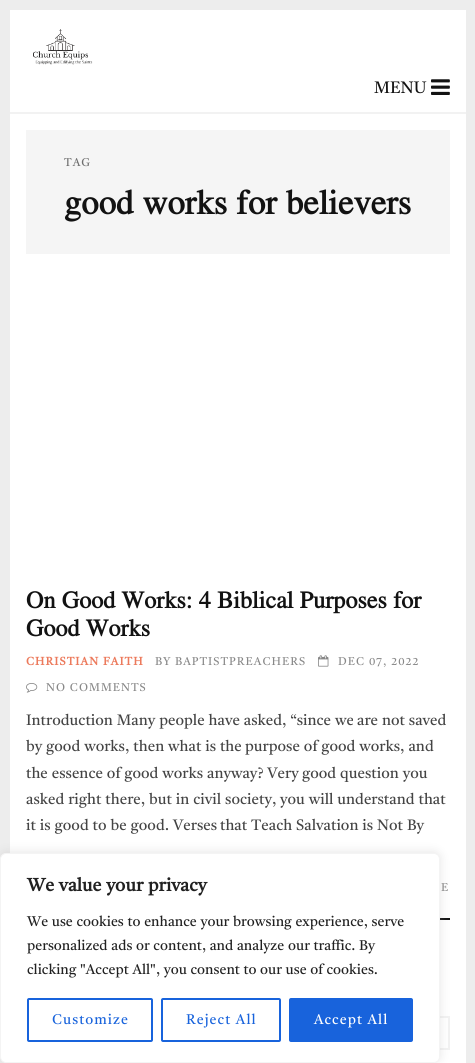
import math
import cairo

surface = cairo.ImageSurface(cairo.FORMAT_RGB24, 475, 1063)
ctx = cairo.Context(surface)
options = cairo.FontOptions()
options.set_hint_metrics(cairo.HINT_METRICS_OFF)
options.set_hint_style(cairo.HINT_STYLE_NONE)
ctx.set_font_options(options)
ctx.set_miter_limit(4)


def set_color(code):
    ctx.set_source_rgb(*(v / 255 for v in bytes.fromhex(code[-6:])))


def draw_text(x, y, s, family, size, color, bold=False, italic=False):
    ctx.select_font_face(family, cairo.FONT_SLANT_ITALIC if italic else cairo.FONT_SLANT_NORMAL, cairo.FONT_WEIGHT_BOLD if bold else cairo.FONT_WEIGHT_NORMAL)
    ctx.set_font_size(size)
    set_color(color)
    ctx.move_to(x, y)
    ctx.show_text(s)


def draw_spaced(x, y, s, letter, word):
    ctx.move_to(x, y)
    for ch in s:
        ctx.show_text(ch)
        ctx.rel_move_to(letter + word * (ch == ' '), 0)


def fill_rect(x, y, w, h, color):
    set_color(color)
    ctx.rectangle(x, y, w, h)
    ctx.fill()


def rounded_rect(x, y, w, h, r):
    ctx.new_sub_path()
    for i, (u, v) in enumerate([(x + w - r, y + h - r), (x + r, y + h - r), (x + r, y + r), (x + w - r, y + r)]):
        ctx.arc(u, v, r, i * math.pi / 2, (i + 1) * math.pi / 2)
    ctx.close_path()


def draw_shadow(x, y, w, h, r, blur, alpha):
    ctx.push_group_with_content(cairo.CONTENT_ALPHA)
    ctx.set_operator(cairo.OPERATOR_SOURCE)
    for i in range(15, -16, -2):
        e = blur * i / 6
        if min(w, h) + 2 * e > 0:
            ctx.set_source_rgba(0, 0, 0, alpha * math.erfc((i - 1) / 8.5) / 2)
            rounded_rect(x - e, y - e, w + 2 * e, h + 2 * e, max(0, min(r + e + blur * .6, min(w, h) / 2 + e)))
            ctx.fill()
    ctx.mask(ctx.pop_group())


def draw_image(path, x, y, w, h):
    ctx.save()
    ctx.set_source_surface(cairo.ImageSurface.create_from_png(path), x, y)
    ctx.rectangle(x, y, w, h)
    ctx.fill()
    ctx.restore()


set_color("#ededed")
ctx.paint()
fill_rect(10, 10, 456, 1053, "#ffffff")
fill_rect(10, 112, 456, 2, "#f2f2f2")
draw_image("assets/img1.png", 33, 29, 60, 36)
draw_text(374, 93, "MENU", "Tiro Devanagari Marathi", 16.5, "#121212")
draw_image("assets/img2.png", 431, 79, 19, 16)
fill_rect(26, 130, 424, 124, "#f5f5f5")
ctx.set_font_size(11.25)
set_color("#6d6d6d")
draw_spaced(64, 166, "TAG", 1, 0)
draw_text(64, 214, "good works for believers", "Jomolhari", 31.1, "#121212", bold=True)
draw_text(26, 608, "On Good Works: 4 Biblical Purposes for", "Jomolhari", 21.6, "#121212", bold=True)
draw_text(26, 636, "Good Works", "Jomolhari", 21.6, "#121212", bold=True)
ctx.select_font_face("Tiro Devanagari Marathi", cairo.FONT_SLANT_NORMAL, cairo.FONT_WEIGHT_BOLD)
ctx.set_font_size(11.25)
set_color("#ec7a5c")
draw_spaced(26, 665, "CHRISTIAN FAITH", 1, 0)
ctx.select_font_face("Tiro Devanagari Marathi")
set_color("#888888")
draw_spaced(155, 665, "BY", 1, 0)
draw_spaced(175, 665, "BAPTISTPREACHERS", 1, 0)
draw_image("assets/img3.png", 318, 655, 11, 12)
draw_spaced(338, 665, "DEC 07, 2022", 1, 0)
draw_image("assets/img4.png", 26, 683, 12, 10)
draw_spaced(46, 691, "NO COMMENTS", 1, 0)
draw_text(26, 725, "Introduction Many people have asked, “since we", "Tiro Devanagari Marathi", 15, "#444444")
draw_text(357, 725, "are not saved", "Tiro Devanagari Marathi", 15, "#444444")
draw_text(26, 751, "by good works, then what is the", "Tiro Devanagari Marathi", 15, "#444444")
draw_text(245, 751, "purpose of good works, and", "Tiro Devanagari Marathi", 15, "#444444")
draw_text(26, 778, "the essence of good works anyway? Very", "Tiro Devanagari Marathi", 15, "#444444")
draw_text(302, 778, "good question you", "Tiro Devanagari Marathi", 15, "#444444")
draw_text(26, 804, "asked right there, but in civil society,", "Tiro Devanagari Marathi", 15, "#444444")
draw_text(280, 804, "you will understand that", "Tiro Devanagari Marathi", 15, "#444444")
draw_text(26, 830, "it is good to be good. Verses", "Tiro Devanagari Marathi", 15, "#444444")
draw_text(220, 830, "that Teach Salvation is Not", "Tiro Devanagari Marathi", 15, "#444444")
draw_text(407, 830, "By", "Tiro Devanagari Marathi", 15, "#444444")
fill_rect(440, 918, 10, 2, "#121212")
ctx.set_font_size(11.25)
set_color("#888888")
draw_spaced(441, 891, "E", 1, 0)
ctx.rectangle(27, 1017, 422, 32)
set_color("#f2f2f2")
ctx.stroke()
set_color("#acabab")
draw_shadow(0, 852, 440, 210, 6, 5, 0.3)
set_color("#ffffff")
rounded_rect(0.5, 853.5, 439, 209, 5.5)
ctx.fill_preserve()
set_color("#f4f4f4")
ctx.set_line_width(1)
ctx.stroke()
draw_text(27, 891, "We value your privacy", "Tiro Devanagari Marathi", 18, "#212121", bold=True)
draw_text(27, 926, "We use cookies to enhance your", "Tiro Devanagari Marathi", 14, "#212121")
draw_text(233, 926, "browsing experience, serve", "Tiro Devanagari Marathi", 14, "#212121")
draw_text(27, 950, "personalized ads or content, and analyze", "Tiro Devanagari Marathi", 14, "#212121")
draw_text(288, 950, "our traffic. By", "Tiro Devanagari Marathi", 14, "#212121")
draw_text(27, 974, "clicking \"Accept All\", you consent to", "Tiro Devanagari Marathi", 14, "#212121")
draw_text(260, 974, "our use of cookies.", "Tiro Devanagari Marathi", 14, "#212121")
rounded_rect(28, 999, 124, 42, 1)
set_color("#1863dc")
ctx.set_line_width(2)
ctx.stroke()
draw_spaced(52, 1024, "Customize", 1, 0)
rounded_rect(162, 999, 118, 42, 1)
ctx.stroke()
draw_spaced(186, 1024, "Reject All", 1, 0)
rounded_rect(290, 999, 122, 42, 1)
ctx.fill_preserve()
ctx.stroke()
set_color("#ffffff")
draw_spaced(314, 1024, "Accept All", 1, 0)
surface.write_to_png("output.png")
